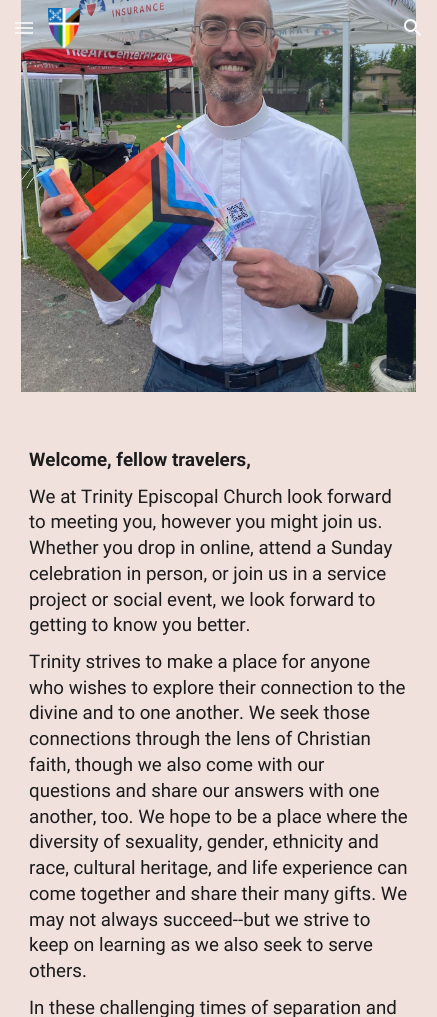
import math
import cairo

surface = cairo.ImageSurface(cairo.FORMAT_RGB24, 437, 1017)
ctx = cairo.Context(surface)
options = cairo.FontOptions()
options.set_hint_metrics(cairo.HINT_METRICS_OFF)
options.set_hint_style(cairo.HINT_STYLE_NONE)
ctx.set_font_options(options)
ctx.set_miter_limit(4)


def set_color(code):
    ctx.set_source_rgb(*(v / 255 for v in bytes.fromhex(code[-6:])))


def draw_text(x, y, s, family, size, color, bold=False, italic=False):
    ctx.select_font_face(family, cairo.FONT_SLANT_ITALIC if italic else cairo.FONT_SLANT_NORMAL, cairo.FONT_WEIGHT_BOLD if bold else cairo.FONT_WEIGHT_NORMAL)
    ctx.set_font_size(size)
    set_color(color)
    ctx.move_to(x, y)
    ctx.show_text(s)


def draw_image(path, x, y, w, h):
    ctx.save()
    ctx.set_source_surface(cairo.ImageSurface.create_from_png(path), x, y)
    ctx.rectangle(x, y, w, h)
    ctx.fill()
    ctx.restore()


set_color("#f1e1dd")
ctx.paint()
draw_image("assets/img3.png", 21, 0, 395, 392)
ctx.set_source_rgba(0.976, 0.976, 0.976, 0.82)
ctx.rectangle(15, 22, 18, 2)
ctx.fill()
ctx.rectangle(15, 27, 18, 2)
ctx.fill()
ctx.rectangle(15, 32, 18, 2)
ctx.fill()
draw_image("assets/img1.png", 48, 8, 32, 40)
draw_image("assets/img2.png", 404, 19, 17, 17)
draw_text(29, 466, "Welcome, fellow travelers,", "Roboto", 18.7, "#1c1c1c", bold=True)
draw_text(29, 503, "We at Trinity Episcopal Church look forward", "Roboto", 18.7, "#1c1c1c")
draw_text(29, 528, "to meeting you, however you might join us.", "Roboto", 18.7, "#1c1c1c")
draw_text(29, 554, "Whether you drop in online, attend a Sunday", "Roboto", 18.7, "#1c1c1c")
draw_text(29, 580, "celebration in person, or join us in a service", "Roboto", 18.7, "#1c1c1c")
draw_text(29, 606, "project or social event, we look forward to", "Roboto", 18.7, "#1c1c1c")
draw_text(29, 631, "getting to know you better.", "Roboto", 18.7, "#1c1c1c")
draw_text(29, 668, "Trinity strives to make a place for anyone", "Roboto", 18.7, "#1c1c1c")
draw_text(29, 694, "who wishes to explore their connection to the", "Roboto", 18.7, "#1c1c1c")
draw_text(29, 719, "divine and to one another. We seek those", "Roboto", 18.7, "#1c1c1c")
draw_text(29, 745, "connections through the lens of Christian", "Roboto", 18.7, "#1c1c1c")
draw_text(29, 771, "faith, though we also come with our", "Roboto", 18.7, "#1c1c1c")
draw_text(29, 797, "questions and share our answers with one", "Roboto", 18.7, "#1c1c1c")
draw_text(29, 823, "another, too. We hope to be a place where the", "Roboto", 18.7, "#1c1c1c")
draw_text(29, 848, "diversity of sexuality, gender, ethnicity and", "Roboto", 18.7, "#1c1c1c")
draw_text(29, 874, "race, cultural heritage, and life experience can", "Roboto", 18.7, "#1c1c1c")
draw_text(29, 900, "come together and share their many gifts. We", "Roboto", 18.7, "#1c1c1c")
draw_text(29, 926, "may not always succeed--but we strive to", "Roboto", 18.7, "#1c1c1c")
draw_text(29, 951, "keep on learning as we also seek to serve", "Roboto", 18.7, "#1c1c1c")
draw_text(29, 977, "others.", "Roboto", 18.7, "#1c1c1c")
draw_text(29, 1014, "In these challenging times of separation and", "Roboto", 18.7, "#1c1c1c")
surface.write_to_png("output.png")
